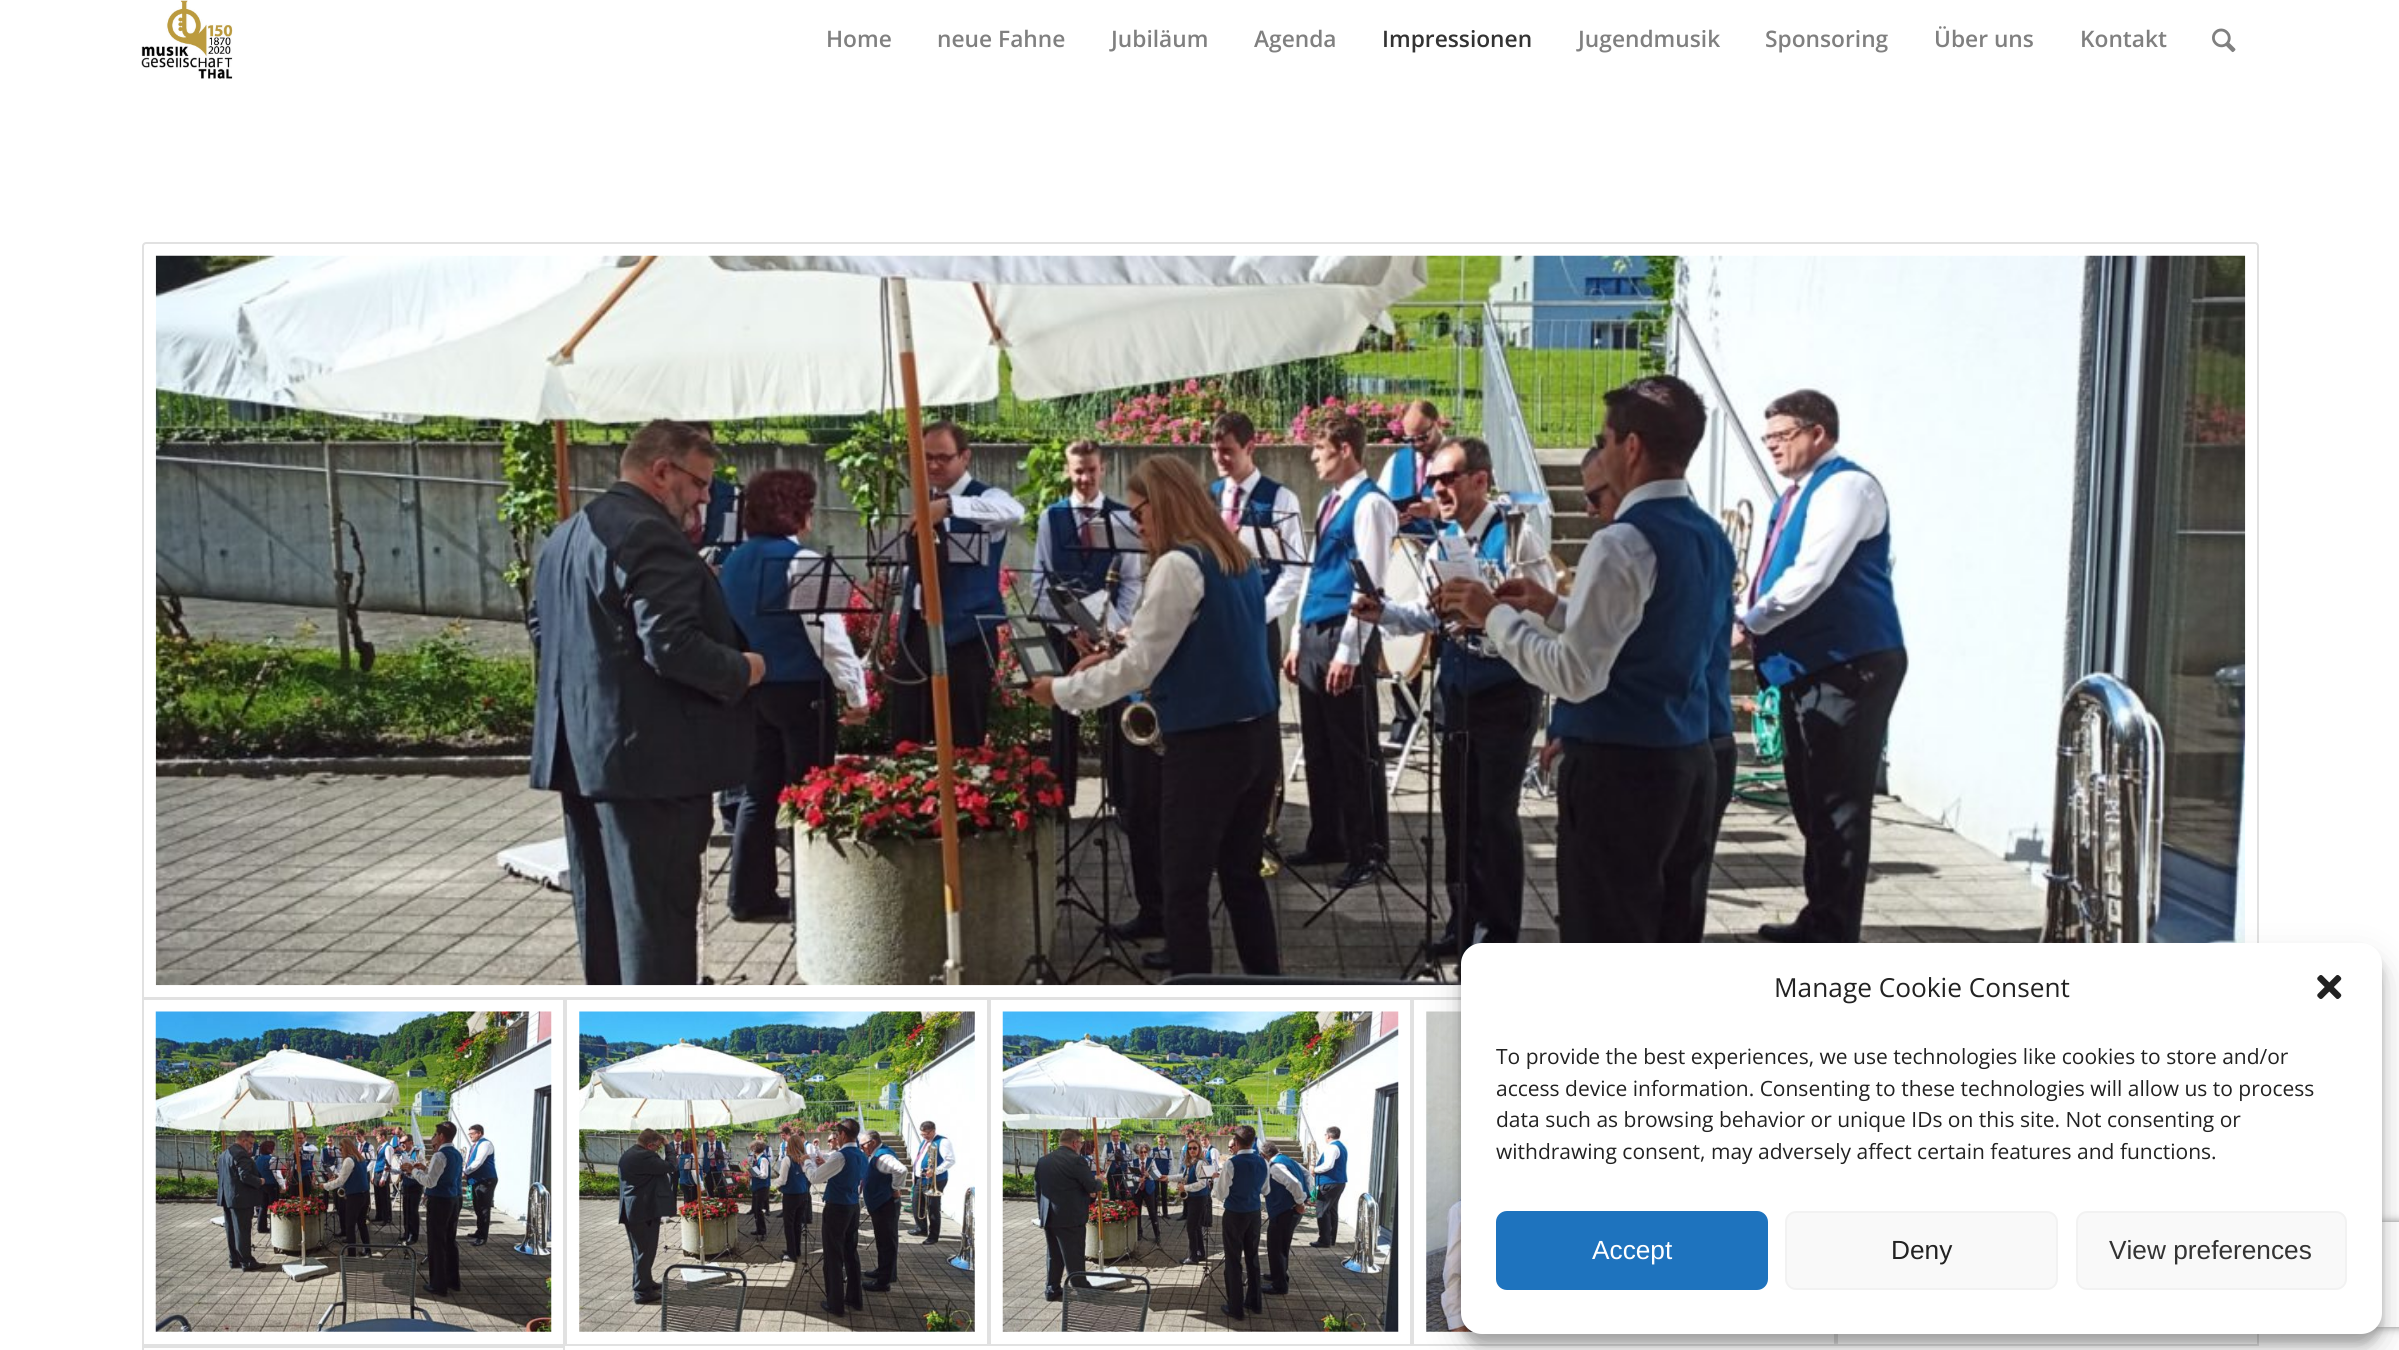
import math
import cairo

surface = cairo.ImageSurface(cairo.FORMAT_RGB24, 2399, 1350)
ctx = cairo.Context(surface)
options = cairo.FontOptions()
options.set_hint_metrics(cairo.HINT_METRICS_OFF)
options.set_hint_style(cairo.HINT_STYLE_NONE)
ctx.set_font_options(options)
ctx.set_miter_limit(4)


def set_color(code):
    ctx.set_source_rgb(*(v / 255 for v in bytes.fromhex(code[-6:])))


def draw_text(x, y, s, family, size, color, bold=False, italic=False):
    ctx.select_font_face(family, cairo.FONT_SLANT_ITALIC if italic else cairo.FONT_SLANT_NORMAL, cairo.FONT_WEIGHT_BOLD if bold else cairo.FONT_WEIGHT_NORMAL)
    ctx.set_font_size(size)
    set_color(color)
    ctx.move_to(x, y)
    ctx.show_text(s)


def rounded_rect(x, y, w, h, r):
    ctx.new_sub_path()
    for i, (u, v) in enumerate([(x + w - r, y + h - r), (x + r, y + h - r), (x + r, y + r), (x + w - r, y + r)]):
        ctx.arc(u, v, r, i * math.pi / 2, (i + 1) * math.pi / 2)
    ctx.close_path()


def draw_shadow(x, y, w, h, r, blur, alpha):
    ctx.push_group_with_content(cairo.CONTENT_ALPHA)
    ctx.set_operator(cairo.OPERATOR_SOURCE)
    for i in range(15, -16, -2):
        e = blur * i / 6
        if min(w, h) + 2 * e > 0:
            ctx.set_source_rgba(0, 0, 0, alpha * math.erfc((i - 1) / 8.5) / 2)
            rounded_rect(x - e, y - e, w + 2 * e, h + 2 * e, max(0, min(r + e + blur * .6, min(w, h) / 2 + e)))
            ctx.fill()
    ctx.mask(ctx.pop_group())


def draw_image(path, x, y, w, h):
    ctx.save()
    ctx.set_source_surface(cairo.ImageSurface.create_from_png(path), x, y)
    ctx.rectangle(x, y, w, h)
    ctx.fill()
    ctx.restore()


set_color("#ffffff")
ctx.paint()
draw_image("assets/img1.png", 141, 0, 92, 79)
draw_text(826, 47, "Home", "Open Sans SemiBold", 22.75, "#808080")
draw_text(937, 47, "neue Fahne", "Open Sans SemiBold", 22.75, "#808080")
draw_text(1111, 47, "Jubiläum", "Open Sans SemiBold", 22.75, "#808080")
draw_text(1254, 47, "Agenda", "Open Sans SemiBold", 22.75, "#808080")
draw_text(1382, 47, "Impressionen", "Open Sans SemiBold", 22.75, "#333333")
draw_text(1578, 47, "Jugendmusik", "Open Sans SemiBold", 22.75, "#808080")
draw_text(1765, 47, "Sponsoring", "Open Sans SemiBold", 22.75, "#808080")
draw_text(1934, 47, "Über uns", "Open Sans SemiBold", 22.75, "#808080")
draw_text(2080, 47, "Kontakt", "Open Sans SemiBold", 22.75, "#808080")
draw_image("assets/img2.png", 2212, 28, 24, 25)
ctx.new_path()
ctx.move_to(146, 243)
ctx.line_to(2255, 243)
ctx.curve_to(2256.5, 243, 2258, 244.5, 2258, 246)
ctx.line_to(2258, 998)
ctx.line_to(143, 998)
ctx.line_to(143, 246)
ctx.curve_to(143, 244.5, 144.5, 243, 146, 243)
ctx.close_path()
set_color("#e1e1e1")
ctx.stroke()
draw_image("assets/img3.png", 155, 255, 2091, 731)
ctx.rectangle(143, 999, 421, 346)
ctx.stroke()
draw_image("assets/img4.png", 155, 1011, 397, 321)
ctx.rectangle(566, 999, 422, 346)
ctx.stroke()
draw_image("assets/img5.png", 579, 1011, 396, 321)
ctx.rectangle(990, 999, 421, 346)
ctx.stroke()
draw_image("assets/img6.png", 1002, 1011, 397, 321)
ctx.rectangle(1413, 999, 422, 346)
ctx.stroke()
draw_image("assets/img7.png", 1426, 1011, 47, 321)
ctx.rectangle(1837, 999, 421, 346)
ctx.stroke()
ctx.rectangle(143, 1347, 421, 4)
ctx.stroke()
set_color("#000000")
draw_shadow(1461, 954, 921, 390, 21, 5, 0.23)
draw_shadow(1461, 961, 921, 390, 21, 17.5, 0.19)
ctx.save()
ctx.set_fill_rule(cairo.FILL_RULE_EVEN_ODD)
ctx.new_path()
ctx.move_to(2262, 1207)
ctx.line_to(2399, 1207)
ctx.line_to(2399, 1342)
ctx.line_to(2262, 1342)
ctx.close_path()
ctx.move_to(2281, 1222)
ctx.line_to(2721, 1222)
ctx.curve_to(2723, 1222, 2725, 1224, 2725, 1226)
ctx.line_to(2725, 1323)
ctx.curve_to(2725, 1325, 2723, 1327, 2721, 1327)
ctx.line_to(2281, 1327)
ctx.curve_to(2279, 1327, 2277, 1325, 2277, 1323)
ctx.line_to(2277, 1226)
ctx.curve_to(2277, 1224, 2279, 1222, 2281, 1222)
ctx.close_path()
ctx.clip()
set_color("#808080")
draw_shadow(2277, 1222, 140, 105, 4, 4.5, 1)
ctx.restore()
set_color("#ffffff")
rounded_rect(1461, 943, 921, 391, 21)
ctx.fill()
draw_text(1774, 997, "Manage Cookie Consent", "Open Sans", 26.25, "#222222")
draw_image("assets/img8.png", 2317, 975, 25, 24)
draw_text(1496, 1064, "To provide the best experiences, we use technologies like cookies to store and/or", "Open Sans", 21, "#222222")
draw_text(1496, 1096, "access device information. Consenting to these technologies will allow us to process", "Open Sans", 21, "#222222")
draw_text(1496, 1127, "data such as browsing behavior or unique IDs on this site. Not consenting or", "Open Sans", 21, "#222222")
draw_text(1496, 1159, "withdrawing consent, may adversely affect certain features and functions.", "Open Sans", 21, "#222222")
set_color("#1e73be")
rounded_rect(1497, 1212, 270, 77, 10)
ctx.fill_preserve()
ctx.stroke()
draw_text(1592, 1259, "Accept", "Liberation Sans", 26.25, "#ffffff")
set_color("#f9f9f9")
rounded_rect(1786, 1212, 271, 77, 10)
ctx.fill_preserve()
set_color("#f2f2f2")
ctx.stroke()
draw_text(1891, 1259, "Deny", "Liberation Sans", 26.25, "#222222")
set_color("#f9f9f9")
rounded_rect(2077, 1212, 269, 77, 10)
ctx.fill_preserve()
set_color("#f2f2f2")
ctx.stroke()
draw_text(2109, 1259, "View preferences", "Liberation Sans", 26.25, "#333333")
surface.write_to_png("output.png")
